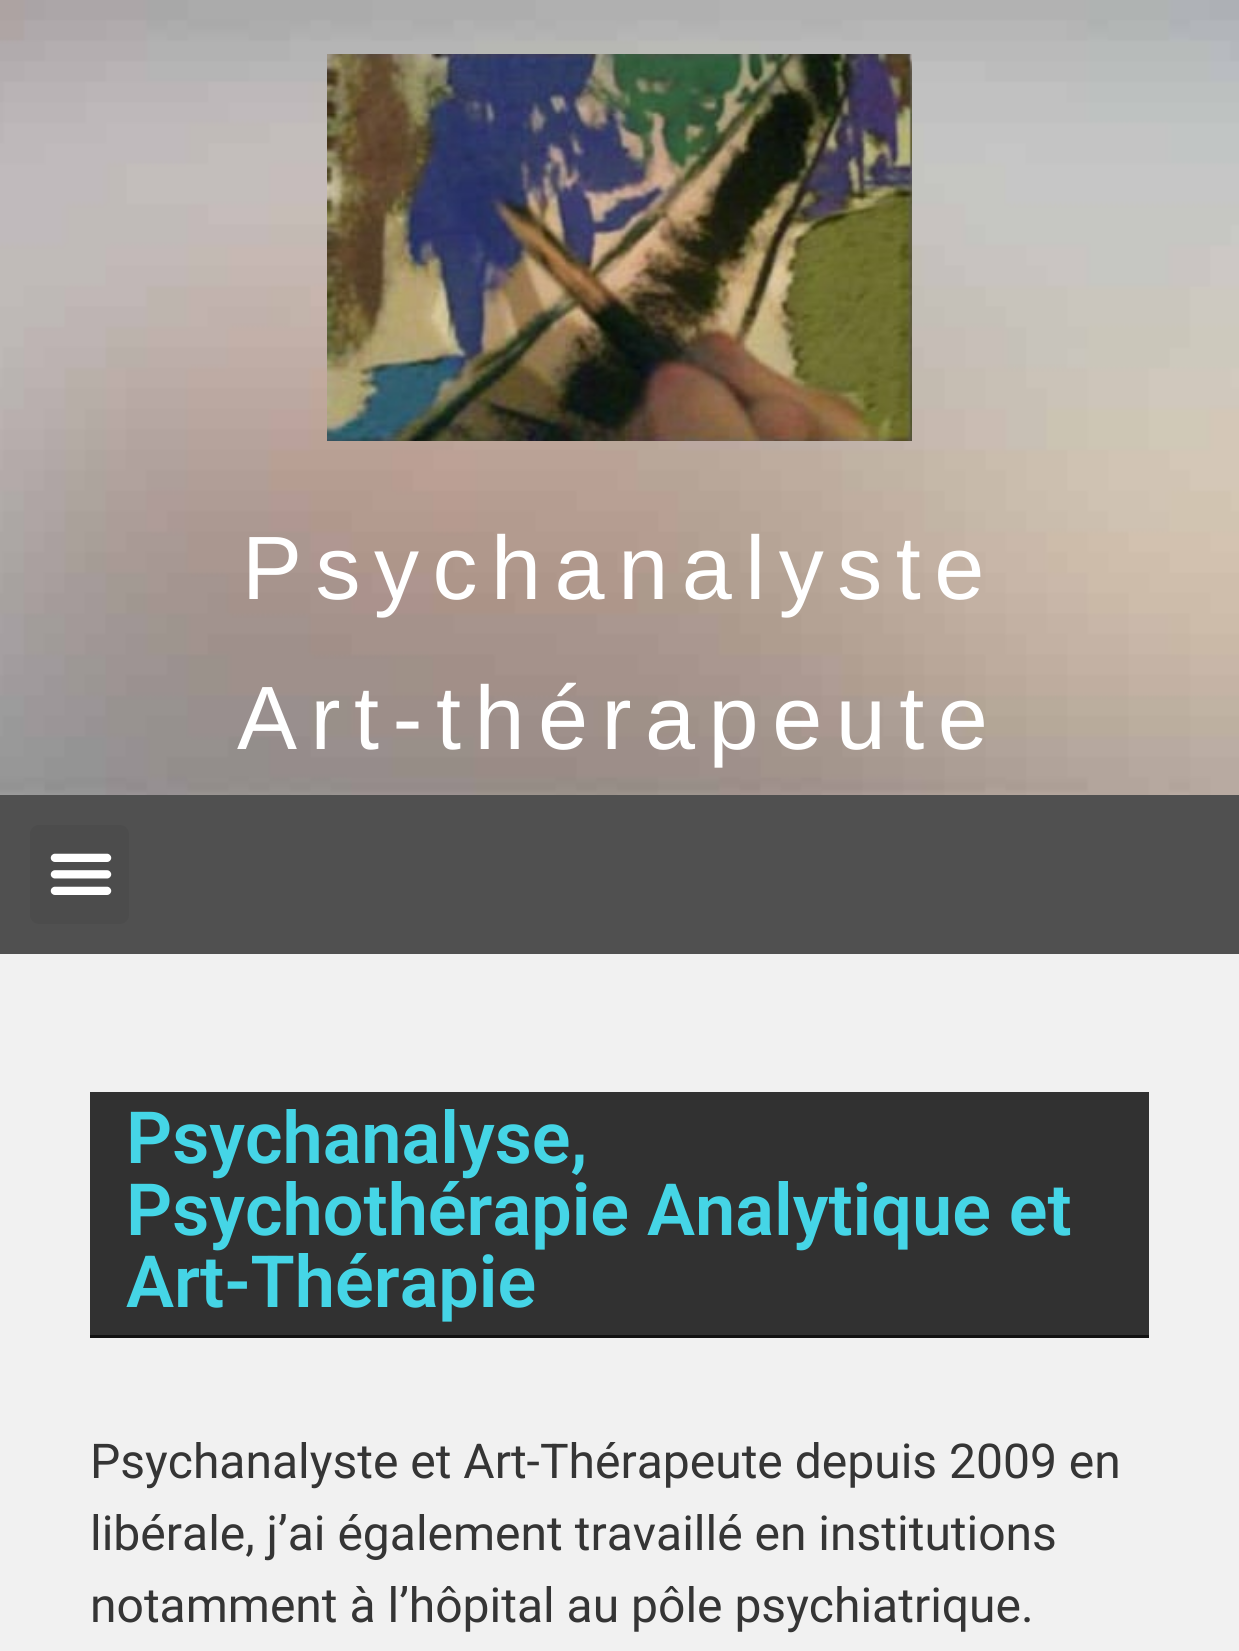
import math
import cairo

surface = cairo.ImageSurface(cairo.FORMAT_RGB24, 1239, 1651)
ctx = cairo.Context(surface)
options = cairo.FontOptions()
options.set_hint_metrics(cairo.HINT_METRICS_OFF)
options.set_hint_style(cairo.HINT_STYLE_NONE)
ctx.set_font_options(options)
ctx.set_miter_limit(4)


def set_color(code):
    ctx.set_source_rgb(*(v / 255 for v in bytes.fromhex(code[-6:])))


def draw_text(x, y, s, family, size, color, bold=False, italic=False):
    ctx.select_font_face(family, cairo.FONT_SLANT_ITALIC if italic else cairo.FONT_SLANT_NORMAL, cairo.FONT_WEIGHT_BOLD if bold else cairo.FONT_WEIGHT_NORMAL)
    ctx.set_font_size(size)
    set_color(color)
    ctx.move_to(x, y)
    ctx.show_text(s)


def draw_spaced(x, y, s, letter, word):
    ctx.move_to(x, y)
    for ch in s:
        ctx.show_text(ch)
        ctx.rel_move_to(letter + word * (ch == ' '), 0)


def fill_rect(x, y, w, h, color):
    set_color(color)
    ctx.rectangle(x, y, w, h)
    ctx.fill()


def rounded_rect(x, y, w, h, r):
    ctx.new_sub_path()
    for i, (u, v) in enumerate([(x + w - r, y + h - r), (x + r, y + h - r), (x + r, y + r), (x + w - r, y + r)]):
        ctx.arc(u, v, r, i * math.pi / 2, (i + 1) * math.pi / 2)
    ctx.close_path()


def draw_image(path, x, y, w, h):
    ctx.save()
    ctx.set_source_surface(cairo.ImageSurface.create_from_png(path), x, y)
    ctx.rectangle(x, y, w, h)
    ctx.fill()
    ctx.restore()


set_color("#f1f1f1")
ctx.paint()
draw_image("assets/img1.png", 0, 0, 1239, 795)
draw_image("assets/img2.png", 327, 54, 585, 387)
ctx.select_font_face("Liberation Sans")
ctx.set_font_size(90)
set_color("#ffffff")
draw_spaced(242, 599, "Psychanalyste", 13.5, 0)
draw_spaced(237, 749, "Art-thérapeute", 13.5, 0)
fill_rect(0, 795, 1239, 159, "#505050")
set_color("#4c4c4c")
rounded_rect(30, 825, 99, 99, 9)
ctx.fill()
draw_image("assets/img3.png", 50, 853, 62, 42)
fill_rect(90, 1092, 1059, 243, "#313131")
fill_rect(90, 1335, 1059, 3, "#121212")
draw_text(126, 1163, "Psychanalyse,", "Roboto SemiBold", 72, "#45d5e6")
draw_text(126, 1235, "Psychothérapie Analytique et", "Roboto SemiBold", 72, "#45d5e6")
draw_text(126, 1307, "Art-Thérapie", "Roboto SemiBold", 72, "#45d5e6")
draw_text(90, 1478, "Psychanalyste et Art-Thérapeute depuis 2009 en", "Roboto", 48, "#353535")
draw_text(90, 1550, "libérale, j’ai également travaillé en institutions", "Roboto", 48, "#353535")
draw_text(90, 1622, "notamment à l’hôpital au pôle psychiatrique.", "Roboto", 48, "#353535")
surface.write_to_png("output.png")
